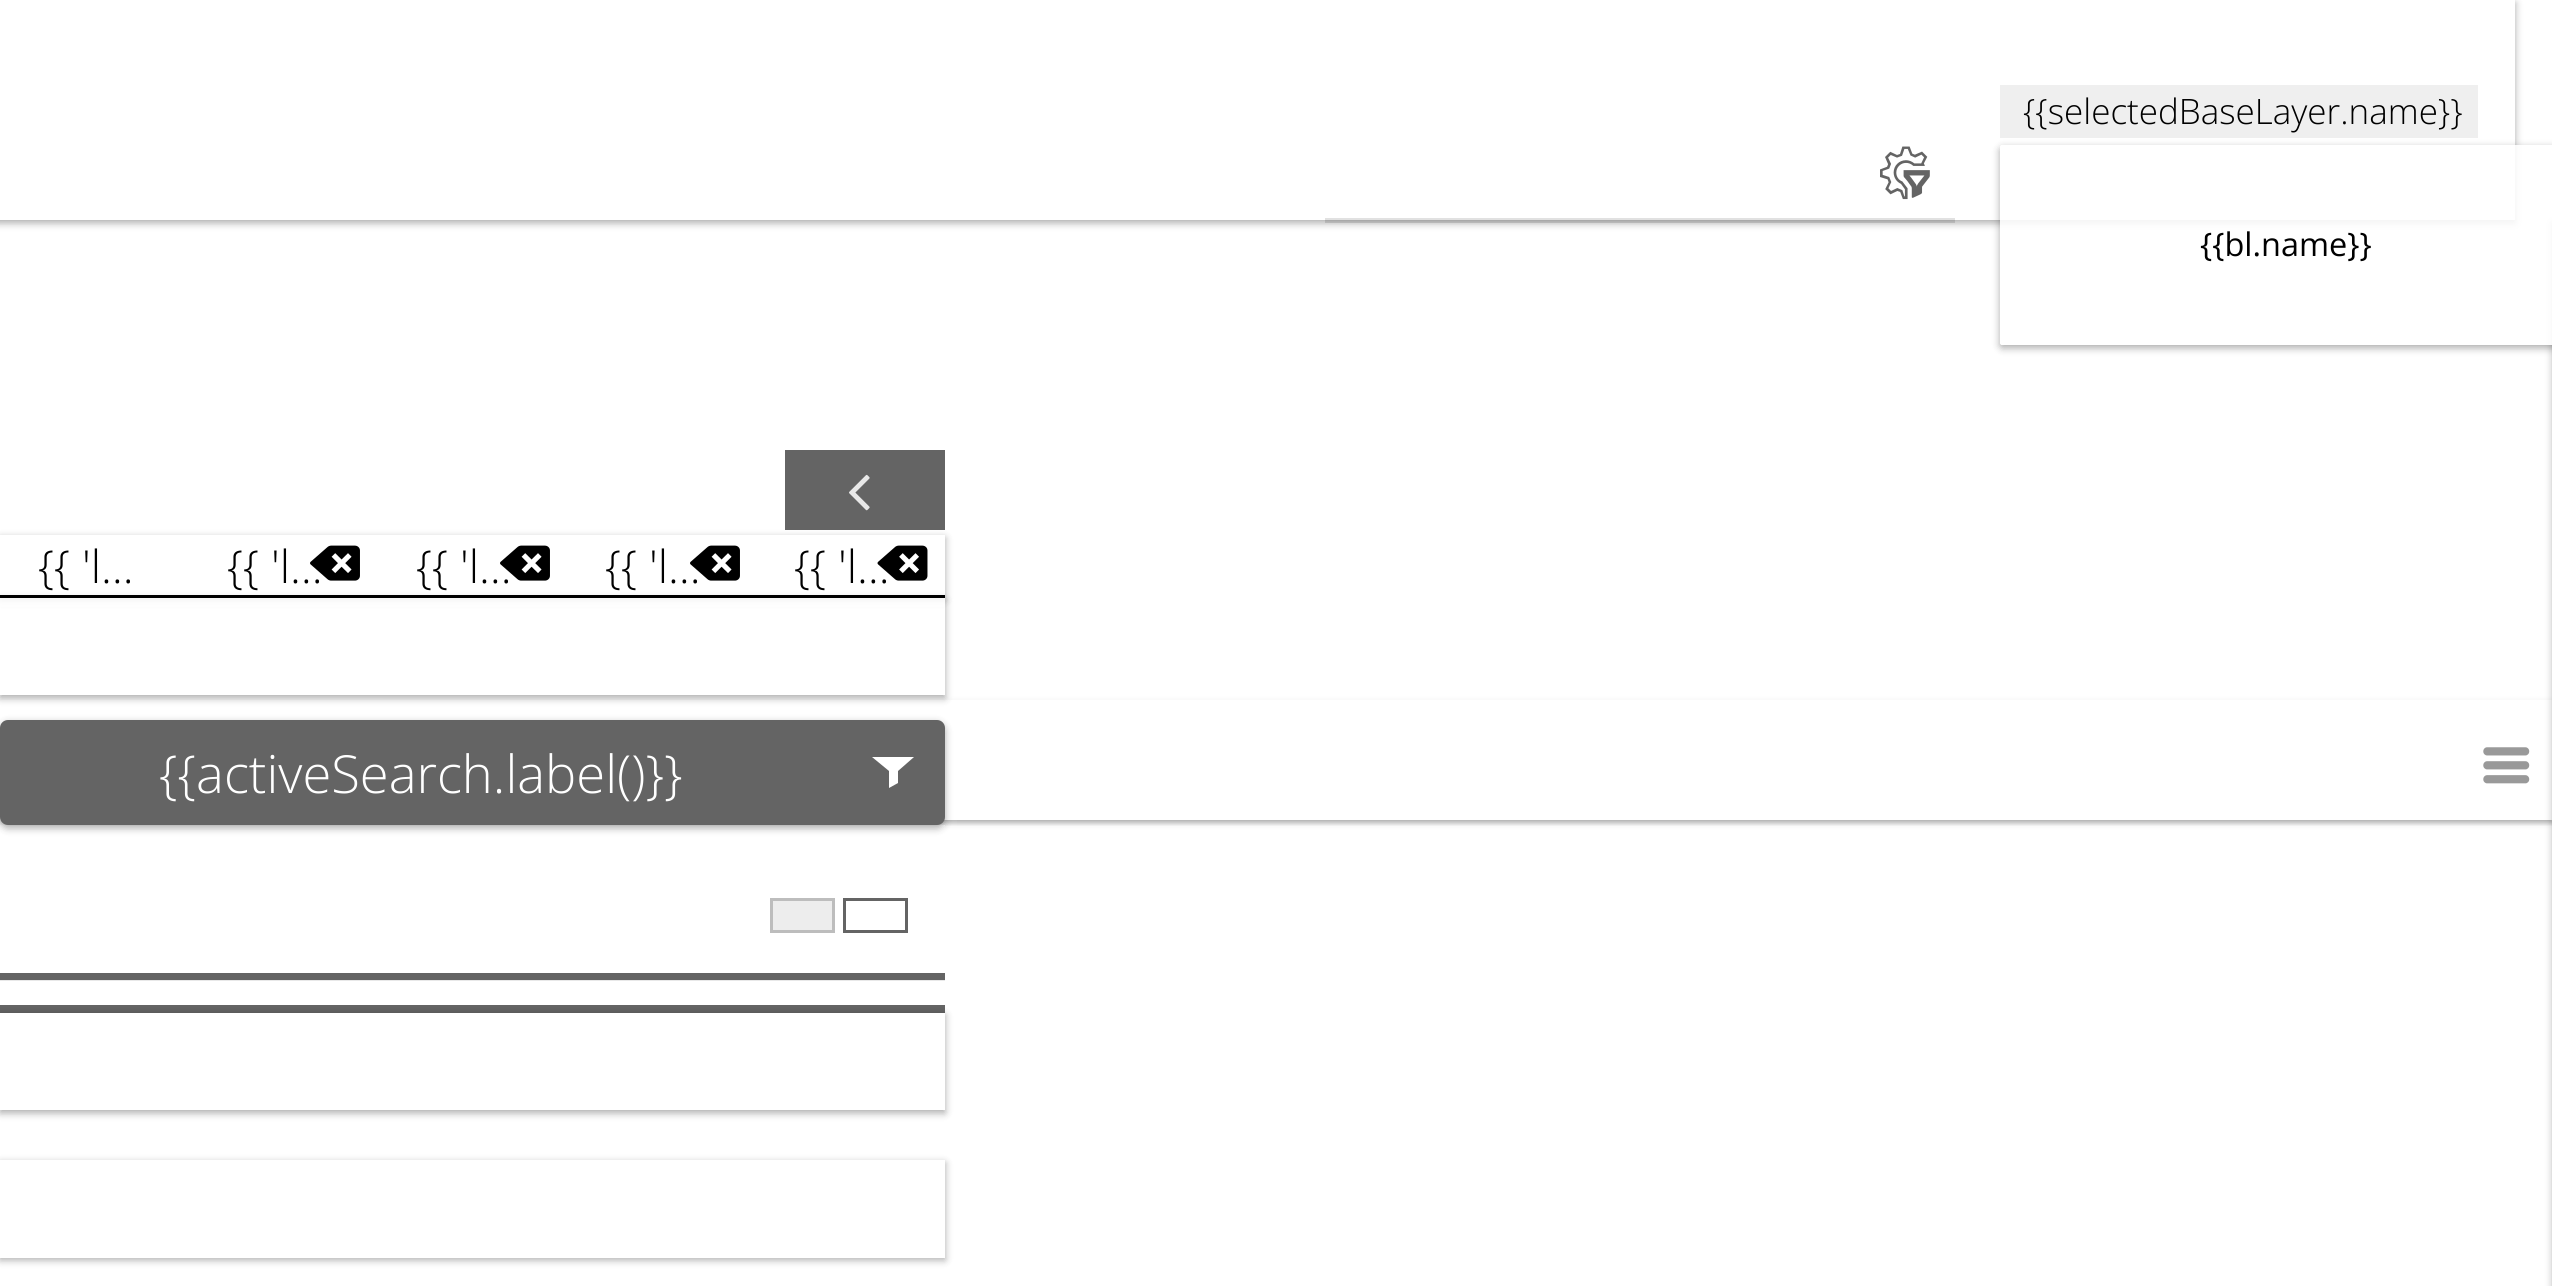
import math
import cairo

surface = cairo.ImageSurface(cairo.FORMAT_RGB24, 2552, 1286)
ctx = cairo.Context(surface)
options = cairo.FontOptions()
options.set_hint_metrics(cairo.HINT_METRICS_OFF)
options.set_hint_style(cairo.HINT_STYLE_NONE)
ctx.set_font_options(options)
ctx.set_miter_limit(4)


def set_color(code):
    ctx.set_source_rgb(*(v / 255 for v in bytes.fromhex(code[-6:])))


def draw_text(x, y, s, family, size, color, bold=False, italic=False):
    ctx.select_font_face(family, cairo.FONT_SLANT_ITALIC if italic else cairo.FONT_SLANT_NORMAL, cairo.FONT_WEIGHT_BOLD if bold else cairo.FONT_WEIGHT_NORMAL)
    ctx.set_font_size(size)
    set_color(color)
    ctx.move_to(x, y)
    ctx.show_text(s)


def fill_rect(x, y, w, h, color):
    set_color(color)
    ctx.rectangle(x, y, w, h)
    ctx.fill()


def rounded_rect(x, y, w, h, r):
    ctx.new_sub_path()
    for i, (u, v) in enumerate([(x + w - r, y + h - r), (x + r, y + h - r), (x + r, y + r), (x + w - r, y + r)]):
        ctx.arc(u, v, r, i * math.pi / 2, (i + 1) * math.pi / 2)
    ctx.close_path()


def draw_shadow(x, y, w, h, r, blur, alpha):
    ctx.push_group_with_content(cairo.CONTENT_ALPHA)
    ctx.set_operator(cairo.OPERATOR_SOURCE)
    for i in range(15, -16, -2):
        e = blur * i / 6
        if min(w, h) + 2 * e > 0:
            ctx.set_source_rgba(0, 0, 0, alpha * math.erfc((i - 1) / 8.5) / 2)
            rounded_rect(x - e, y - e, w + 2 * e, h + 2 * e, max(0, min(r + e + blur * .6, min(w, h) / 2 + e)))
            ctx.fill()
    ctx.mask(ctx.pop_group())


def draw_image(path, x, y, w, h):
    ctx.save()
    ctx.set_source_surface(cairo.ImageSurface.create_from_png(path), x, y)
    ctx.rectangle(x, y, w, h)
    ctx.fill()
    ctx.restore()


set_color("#ffffff")
ctx.paint()
ctx.save()
ctx.set_fill_rule(cairo.FILL_RULE_EVEN_ODD)
ctx.new_path()
ctx.move_to(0, 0)
ctx.line_to(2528, 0)
ctx.line_to(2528, 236)
ctx.line_to(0, 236)
ctx.close_path()
ctx.move_to(-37, 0)
ctx.line_to(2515, 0)
ctx.line_to(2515, 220)
ctx.line_to(-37, 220)
ctx.close_path()
ctx.clip()
set_color("#000000")
draw_shadow(-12, 3, 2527, 220, 0, 4, 0.33)
ctx.restore()
draw_image("assets/img1.png", 1880, 146, 50, 54)
ctx.set_source_rgba(0, 0, 0, 0.12)
ctx.rectangle(1325, 218, 630, 5)
ctx.fill()
fill_rect(2000, 85, 478, 53, "#efefef")
draw_text(2023, 124, "{{selectedBaseLayer.name}}", "Open Sans Light", 35, "#000000")
ctx.save()
ctx.set_fill_rule(cairo.FILL_RULE_EVEN_ODD)
ctx.new_path()
ctx.move_to(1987, 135)
ctx.line_to(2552, 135)
ctx.line_to(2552, 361)
ctx.line_to(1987, 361)
ctx.close_path()
ctx.move_to(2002.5, 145)
ctx.line_to(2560.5, 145)
ctx.curve_to(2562, 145, 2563, 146, 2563, 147.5)
ctx.line_to(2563, 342.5)
ctx.curve_to(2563, 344, 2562, 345, 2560.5, 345)
ctx.line_to(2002.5, 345)
ctx.curve_to(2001, 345, 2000, 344, 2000, 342.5)
ctx.line_to(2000, 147.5)
ctx.curve_to(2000, 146, 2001, 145, 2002.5, 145)
ctx.close_path()
ctx.clip()
set_color("#000000")
draw_shadow(2000, 148, 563, 200, 2.5, 4, 0.33)
ctx.restore()
set_color("#000000")
draw_shadow(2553, 223, 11, 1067, 0, 4, 0.33)
ctx.set_source_rgba(1, 1, 1, 0.85)
rounded_rect(2000, 145, 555, 200, 2.5)
ctx.fill()
draw_text(2200, 256, "{{bl.name}}", "Open Sans", 32.5, "#000000")
fill_rect(785, 450, 160, 80, "#646464")
draw_image("assets/img2.png", 849, 474, 21, 37)
ctx.save()
ctx.set_fill_rule(cairo.FILL_RULE_EVEN_ODD)
ctx.new_path()
ctx.move_to(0, 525)
ctx.line_to(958, 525)
ctx.line_to(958, 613)
ctx.line_to(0, 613)
ctx.close_path()
ctx.move_to(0, 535)
ctx.line_to(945, 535)
ctx.line_to(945, 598)
ctx.line_to(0, 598)
ctx.close_path()
ctx.clip()
set_color("#000000")
draw_shadow(0, 538, 945, 62, 0, 4, 0.33)
ctx.restore()
fill_rect(0, 595, 945, 3, "#000000")
draw_text(38, 583, "{{ 'l…", "Open Sans Light", 45.5, "#000000")
draw_text(227, 583, "{{ 'l…", "Open Sans Light", 45.5, "#000000")
draw_image("assets/img3.png", 310, 545, 50, 36)
draw_text(416, 583, "{{ 'l…", "Open Sans Light", 45.5, "#000000")
draw_image("assets/img4.png", 500, 545, 50, 36)
draw_text(605, 583, "{{ 'l…", "Open Sans Light", 45.5, "#000000")
draw_image("assets/img5.png", 690, 545, 50, 36)
draw_text(794, 583, "{{ 'l…", "Open Sans Light", 45.5, "#000000")
draw_image("assets/img6.png", 877, 545, 51, 36)
ctx.save()
ctx.rectangle(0, 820, 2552, 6)
ctx.clip()
set_color("#000000")
draw_shadow(0, 703, 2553, 120, 0, 2.5, 0.24)
ctx.restore()
ctx.save()
ctx.set_fill_rule(cairo.FILL_RULE_EVEN_ODD)
ctx.new_path()
ctx.move_to(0, 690)
ctx.line_to(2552, 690)
ctx.line_to(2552, 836)
ctx.line_to(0, 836)
ctx.close_path()
ctx.move_to(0, 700)
ctx.line_to(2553, 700)
ctx.line_to(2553, 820)
ctx.line_to(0, 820)
ctx.close_path()
ctx.clip()
set_color("#000000")
draw_shadow(0, 703, 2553, 120, 0, 4, 0.12)
ctx.restore()
gradient = cairo.LinearGradient(0, 644, 1020, 644)
gradient.add_color_stop_rgba(0, 1, 1, 1, 0.6)
gradient.add_color_stop_rgba(1, 1, 1, 1, 0)
ctx.set_source(gradient)
ctx.rectangle(0, 698, 957, 130)
ctx.fill()
ctx.save()
ctx.set_fill_rule(cairo.FILL_RULE_EVEN_ODD)
ctx.new_path()
ctx.move_to(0, 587)
ctx.line_to(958, 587)
ctx.line_to(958, 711)
ctx.line_to(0, 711)
ctx.close_path()
ctx.move_to(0, 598)
ctx.line_to(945, 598)
ctx.line_to(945, 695)
ctx.line_to(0, 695)
ctx.close_path()
ctx.clip()
set_color("#000000")
draw_shadow(0, 600, 945, 98, 0, 4, 0.33)
ctx.restore()
ctx.set_source_rgba(1, 1, 1, 0.85)
ctx.rectangle(0, 598, 945, 9)
ctx.fill()
ctx.rectangle(0, 825, 945, 4)
ctx.fill()
set_color("#000000")
draw_shadow(0, 723, 945, 105, 8, 4, 0.33)
set_color("#646464")
rounded_rect(0, 720, 945, 105, 8)
ctx.fill()
draw_text(159, 793, "{{activeSearch.label()}}", "Open Sans Light", 52.5, "#ffffff")
ctx.new_path()
ctx.move_to(872, 757)
ctx.line_to(889, 771)
ctx.line_to(889, 788)
ctx.line_to(898, 783)
ctx.line_to(898, 771)
ctx.line_to(914, 757)
ctx.close_path()
ctx.fill()
fill_rect(0, 973, 945, 8, "#646464")
set_color("#ededed")
ctx.rectangle(771.5, 899.5, 62, 32)
ctx.fill_preserve()
set_color("#bdbdbd")
ctx.set_line_width(3)
ctx.stroke()
ctx.rectangle(844.5, 899.5, 62, 32)
set_color("#646464")
ctx.stroke()
ctx.set_source_rgba(1, 1, 1, 0.85)
ctx.rectangle(0, 980, 945, 1)
ctx.fill()
fill_rect(0, 1005, 945, 8, "#646464")
ctx.save()
ctx.set_fill_rule(cairo.FILL_RULE_EVEN_ODD)
ctx.new_path()
ctx.move_to(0, 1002)
ctx.line_to(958, 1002)
ctx.line_to(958, 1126)
ctx.line_to(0, 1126)
ctx.close_path()
ctx.move_to(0, 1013)
ctx.line_to(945, 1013)
ctx.line_to(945, 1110)
ctx.line_to(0, 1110)
ctx.close_path()
ctx.clip()
set_color("#000000")
draw_shadow(0, 1015, 945, 98, 0, 4, 0.33)
ctx.restore()
ctx.save()
ctx.set_fill_rule(cairo.FILL_RULE_EVEN_ODD)
ctx.new_path()
ctx.move_to(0, 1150)
ctx.line_to(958, 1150)
ctx.line_to(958, 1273)
ctx.line_to(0, 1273)
ctx.close_path()
ctx.move_to(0, 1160)
ctx.line_to(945, 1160)
ctx.line_to(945, 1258)
ctx.line_to(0, 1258)
ctx.close_path()
ctx.clip()
set_color("#000000")
draw_shadow(0, 1163, 945, 97, 0, 4, 0.33)
ctx.restore()
ctx.set_source_rgba(1, 1, 1, 0.85)
ctx.rectangle(0, 1257, 945, 1)
ctx.fill()
draw_image("assets/img7.png", 2483, 747, 47, 37)
surface.write_to_png("output.png")
